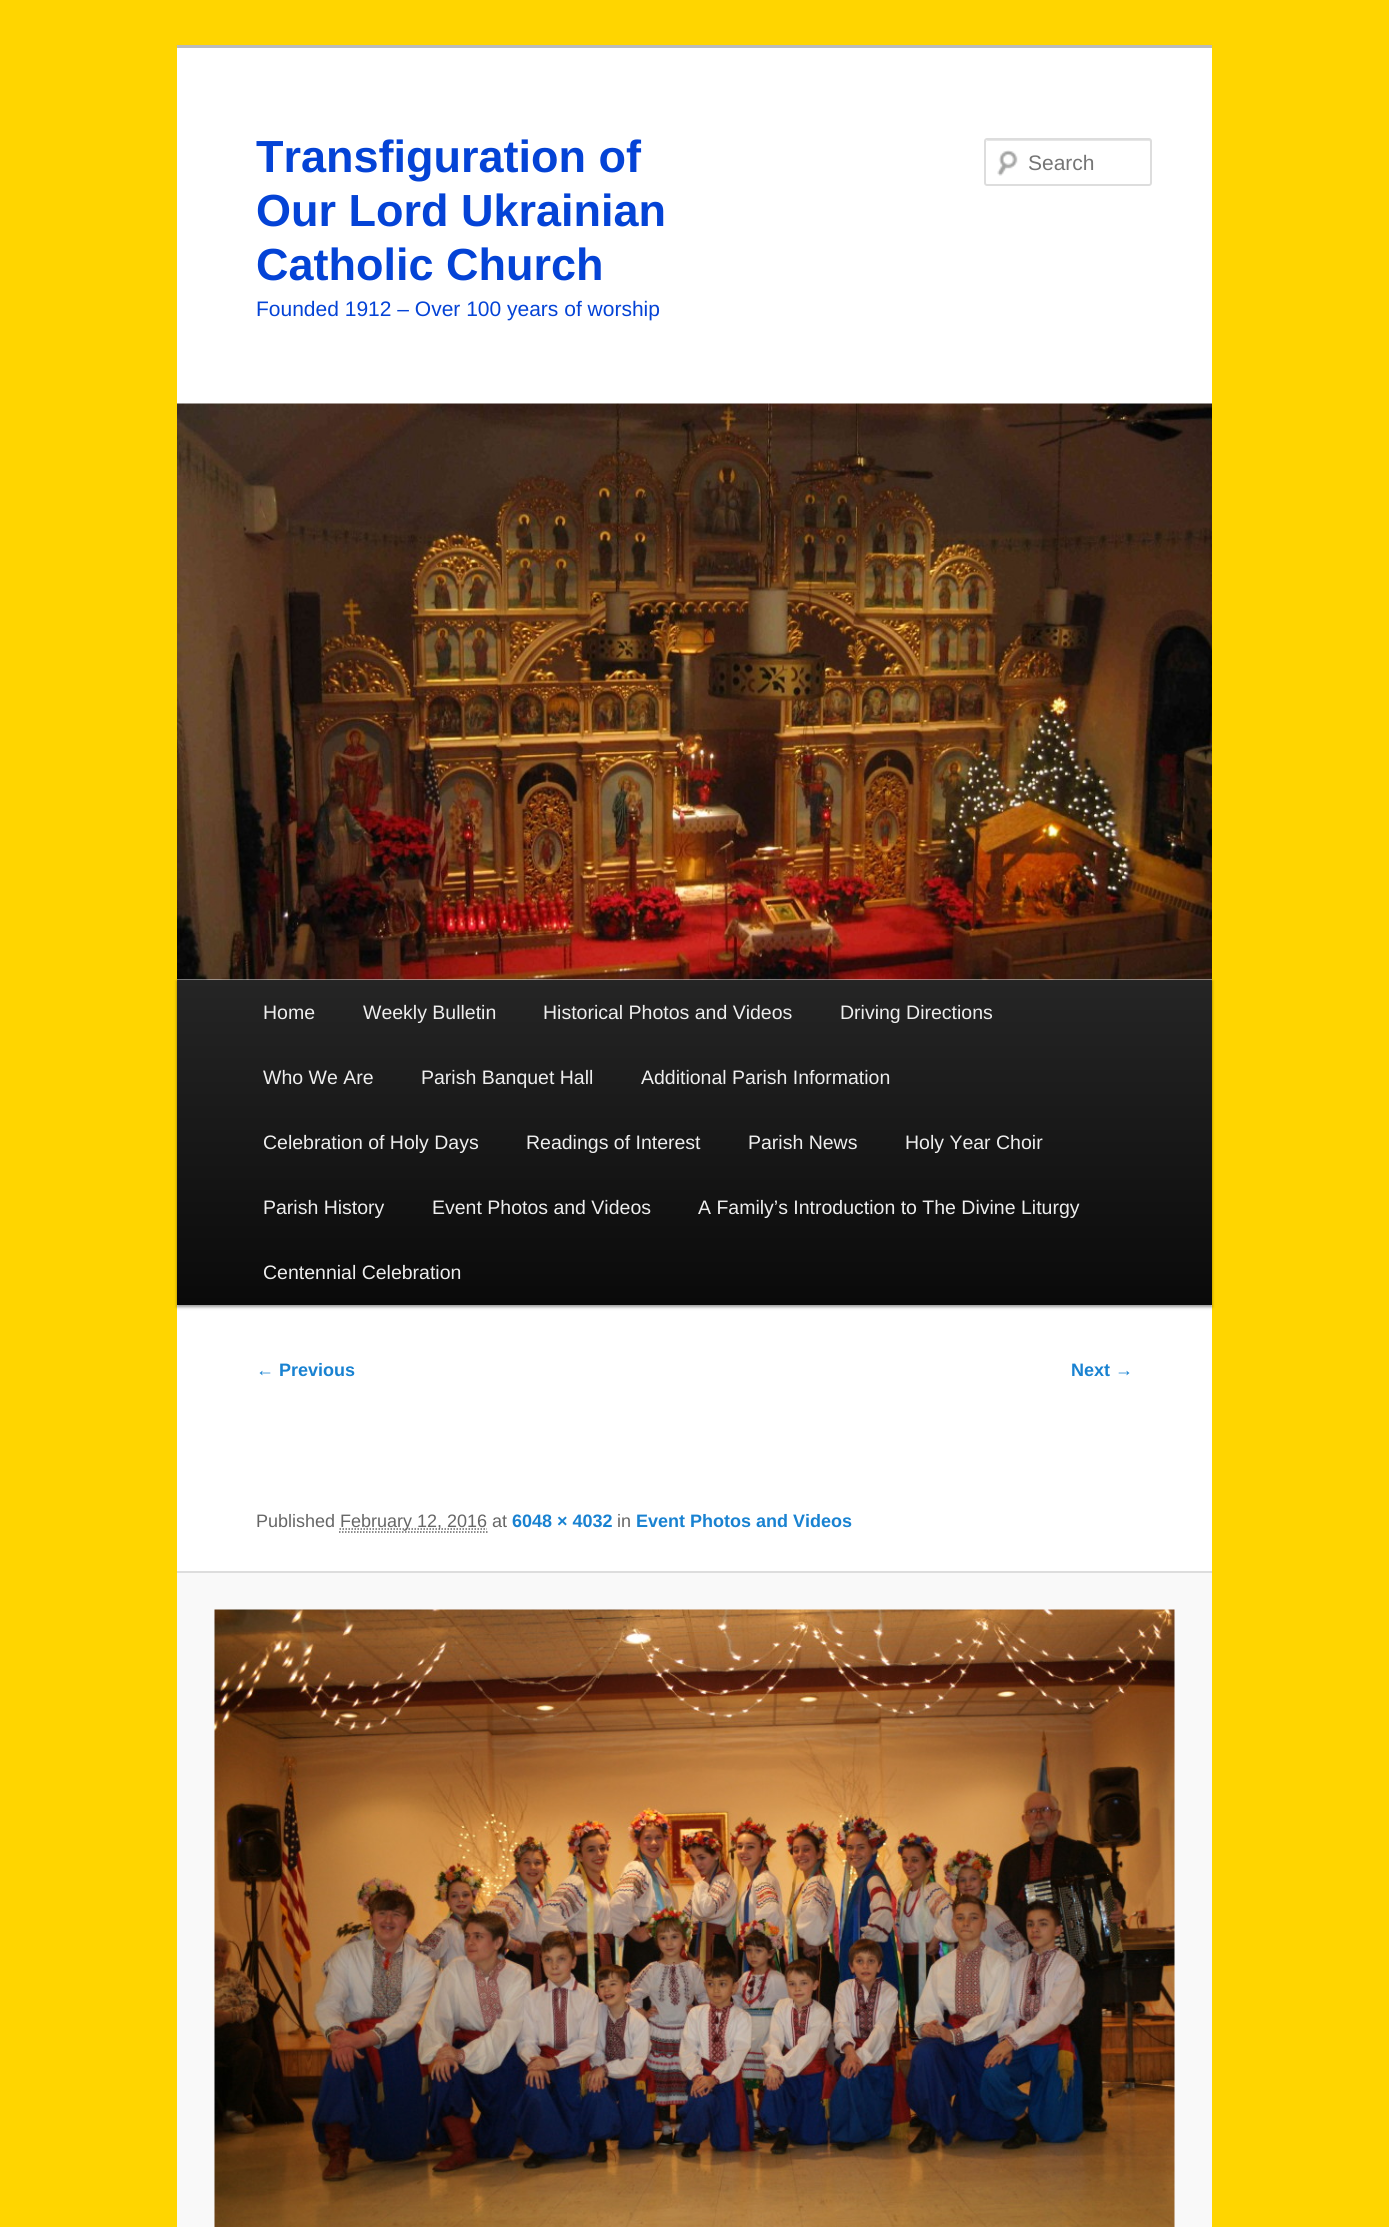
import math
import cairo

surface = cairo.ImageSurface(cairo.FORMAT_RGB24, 1389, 2227)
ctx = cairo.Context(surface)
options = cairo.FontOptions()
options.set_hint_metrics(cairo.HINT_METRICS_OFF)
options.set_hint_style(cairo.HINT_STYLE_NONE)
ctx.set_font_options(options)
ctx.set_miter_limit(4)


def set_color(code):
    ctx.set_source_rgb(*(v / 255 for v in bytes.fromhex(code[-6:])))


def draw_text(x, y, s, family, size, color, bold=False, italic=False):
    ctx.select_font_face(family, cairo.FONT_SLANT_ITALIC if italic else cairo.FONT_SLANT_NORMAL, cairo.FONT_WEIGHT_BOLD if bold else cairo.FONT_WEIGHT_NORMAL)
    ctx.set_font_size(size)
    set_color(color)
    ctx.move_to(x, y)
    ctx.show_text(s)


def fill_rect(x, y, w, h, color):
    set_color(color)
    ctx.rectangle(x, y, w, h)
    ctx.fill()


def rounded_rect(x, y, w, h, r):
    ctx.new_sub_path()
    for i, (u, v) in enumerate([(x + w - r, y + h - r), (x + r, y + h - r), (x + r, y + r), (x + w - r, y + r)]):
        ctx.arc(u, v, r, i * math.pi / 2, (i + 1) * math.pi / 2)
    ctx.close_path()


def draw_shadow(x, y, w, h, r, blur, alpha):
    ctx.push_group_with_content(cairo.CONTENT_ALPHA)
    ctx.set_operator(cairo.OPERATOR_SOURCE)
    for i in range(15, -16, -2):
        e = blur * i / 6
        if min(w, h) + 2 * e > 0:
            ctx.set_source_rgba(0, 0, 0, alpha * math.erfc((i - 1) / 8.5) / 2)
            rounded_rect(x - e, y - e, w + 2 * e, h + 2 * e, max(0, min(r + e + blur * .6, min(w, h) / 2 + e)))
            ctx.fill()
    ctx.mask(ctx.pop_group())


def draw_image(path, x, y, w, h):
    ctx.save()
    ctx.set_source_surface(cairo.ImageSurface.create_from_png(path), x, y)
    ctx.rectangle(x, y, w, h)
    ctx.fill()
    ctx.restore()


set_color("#ffd500")
ctx.paint()
fill_rect(177, 48, 1035, 1523, "#ffffff")
fill_rect(177, 45, 1035, 3, "#bbbbbb")
draw_text(256, 172, "Transfiguration of", "Liberation Sans", 45, "#0443d6", bold=True)
draw_text(256, 226, "Our Lord Ukrainian", "Liberation Sans", 45, "#0443d6", bold=True)
draw_text(256, 280, "Catholic Church", "Liberation Sans", 45, "#0443d6", bold=True)
draw_text(256, 316, "Founded 1912 – Over 100 years of worship", "Liberation Sans", 21, "#0443d6")
draw_image("assets/img1.png", 997, 150, 21, 26)
set_color("#e6e6e6")
ctx.new_path()
ctx.move_to(987, 141)
ctx.line_to(1149, 141)
ctx.curve_to(1150, 141, 1150, 142, 1150, 142)
ctx.line_to(1150, 185)
ctx.curve_to(1151, 185, 1151, 184, 1151, 184)
ctx.line_to(1151, 142)
ctx.curve_to(1151, 141, 1150, 140, 1150, 140)
ctx.line_to(988, 140)
ctx.curve_to(987, 140, 986, 141, 986, 142)
ctx.close_path()
ctx.fill()
rounded_rect(985, 139, 166, 46, 2)
set_color("#dddddd")
ctx.stroke()
draw_text(1028, 170, "Search", "Liberation Sans", 21, "#757575")
set_color("#000000")
draw_shadow(177, 981, 1035, 326, 0, 1.5, 0.4)
draw_image("assets/img2.png", 177, 403, 1035, 577)
gradient = cairo.LinearGradient(695, 980, 695, 1305)
gradient.add_color_stop_rgba(0, 0.145, 0.145, 0.145, 1)
gradient.add_color_stop_rgba(1, 0.039, 0.039, 0.039, 1)
ctx.set_source(gradient)
ctx.rectangle(177, 980, 1035, 325)
ctx.fill()
draw_text(263, 1019, "Home", "Liberation Sans", 19.5, "#eeeeee")
draw_text(363, 1019, "Weekly Bulletin", "Liberation Sans", 19.5, "#eeeeee")
draw_text(543, 1019, "Historical Photos and Videos", "Liberation Sans", 19.5, "#eeeeee")
draw_text(840, 1019, "Driving Directions", "Liberation Sans", 19.5, "#eeeeee")
draw_text(263, 1084, "Who We Are", "Liberation Sans", 19.5, "#eeeeee")
draw_text(421, 1084, "Parish Banquet Hall", "Liberation Sans", 19.5, "#eeeeee")
draw_text(641, 1084, "Additional Parish Information", "Liberation Sans", 19.5, "#eeeeee")
draw_text(263, 1149, "Celebration of Holy Days", "Liberation Sans", 19.5, "#eeeeee")
draw_text(526, 1149, "Readings of Interest", "Liberation Sans", 19.5, "#eeeeee")
draw_text(748, 1149, "Parish News", "Liberation Sans", 19.5, "#eeeeee")
draw_text(905, 1149, "Holy Year Choir", "Liberation Sans", 19.5, "#eeeeee")
draw_text(263, 1214, "Parish History", "Liberation Sans", 19.5, "#eeeeee")
draw_text(432, 1214, "Event Photos and Videos", "Liberation Sans", 19.5, "#eeeeee")
draw_text(698, 1214, "A Family’s Introduction to The Divine Liturgy", "Liberation Sans", 19.5, "#eeeeee")
draw_text(263, 1279, "Centennial Celebration", "Liberation Sans", 19.5, "#eeeeee")
draw_text(256, 1376, "← Previous", "Liberation Sans", 18, "#1982d1", bold=True)
draw_text(1071, 1376, "Next →", "Liberation Sans", 18, "#1982d1", bold=True)
draw_text(256, 1527, "Published", "Liberation Sans", 18, "#666666")
ctx.new_path()
ctx.move_to(339.5, 1529)
ctx.line_to(487, 1529)
ctx.set_line_width(1.5)
ctx.set_dash([1.5, 1.5])
ctx.stroke()
draw_text(340, 1527, "February 12, 2016 at", "Liberation Sans", 18, "#666666")
ctx.new_path()
ctx.move_to(339, 1532)
ctx.line_to(487.5, 1532)
ctx.stroke()
draw_text(512, 1527, "6048 × 4032", "Liberation Sans", 18, "#1982d1", bold=True)
draw_text(617, 1527, "in", "Liberation Sans", 18, "#666666")
draw_text(636, 1527, "Event Photos and Videos", "Liberation Sans", 18, "#1982d1", bold=True)
fill_rect(177, 1573, 1035, 654, "#f9f9f9")
fill_rect(177, 1571, 1035, 2, "#dddddd")
draw_image("assets/img3.png", 214, 1609, 961, 618)
surface.write_to_png("output.png")
